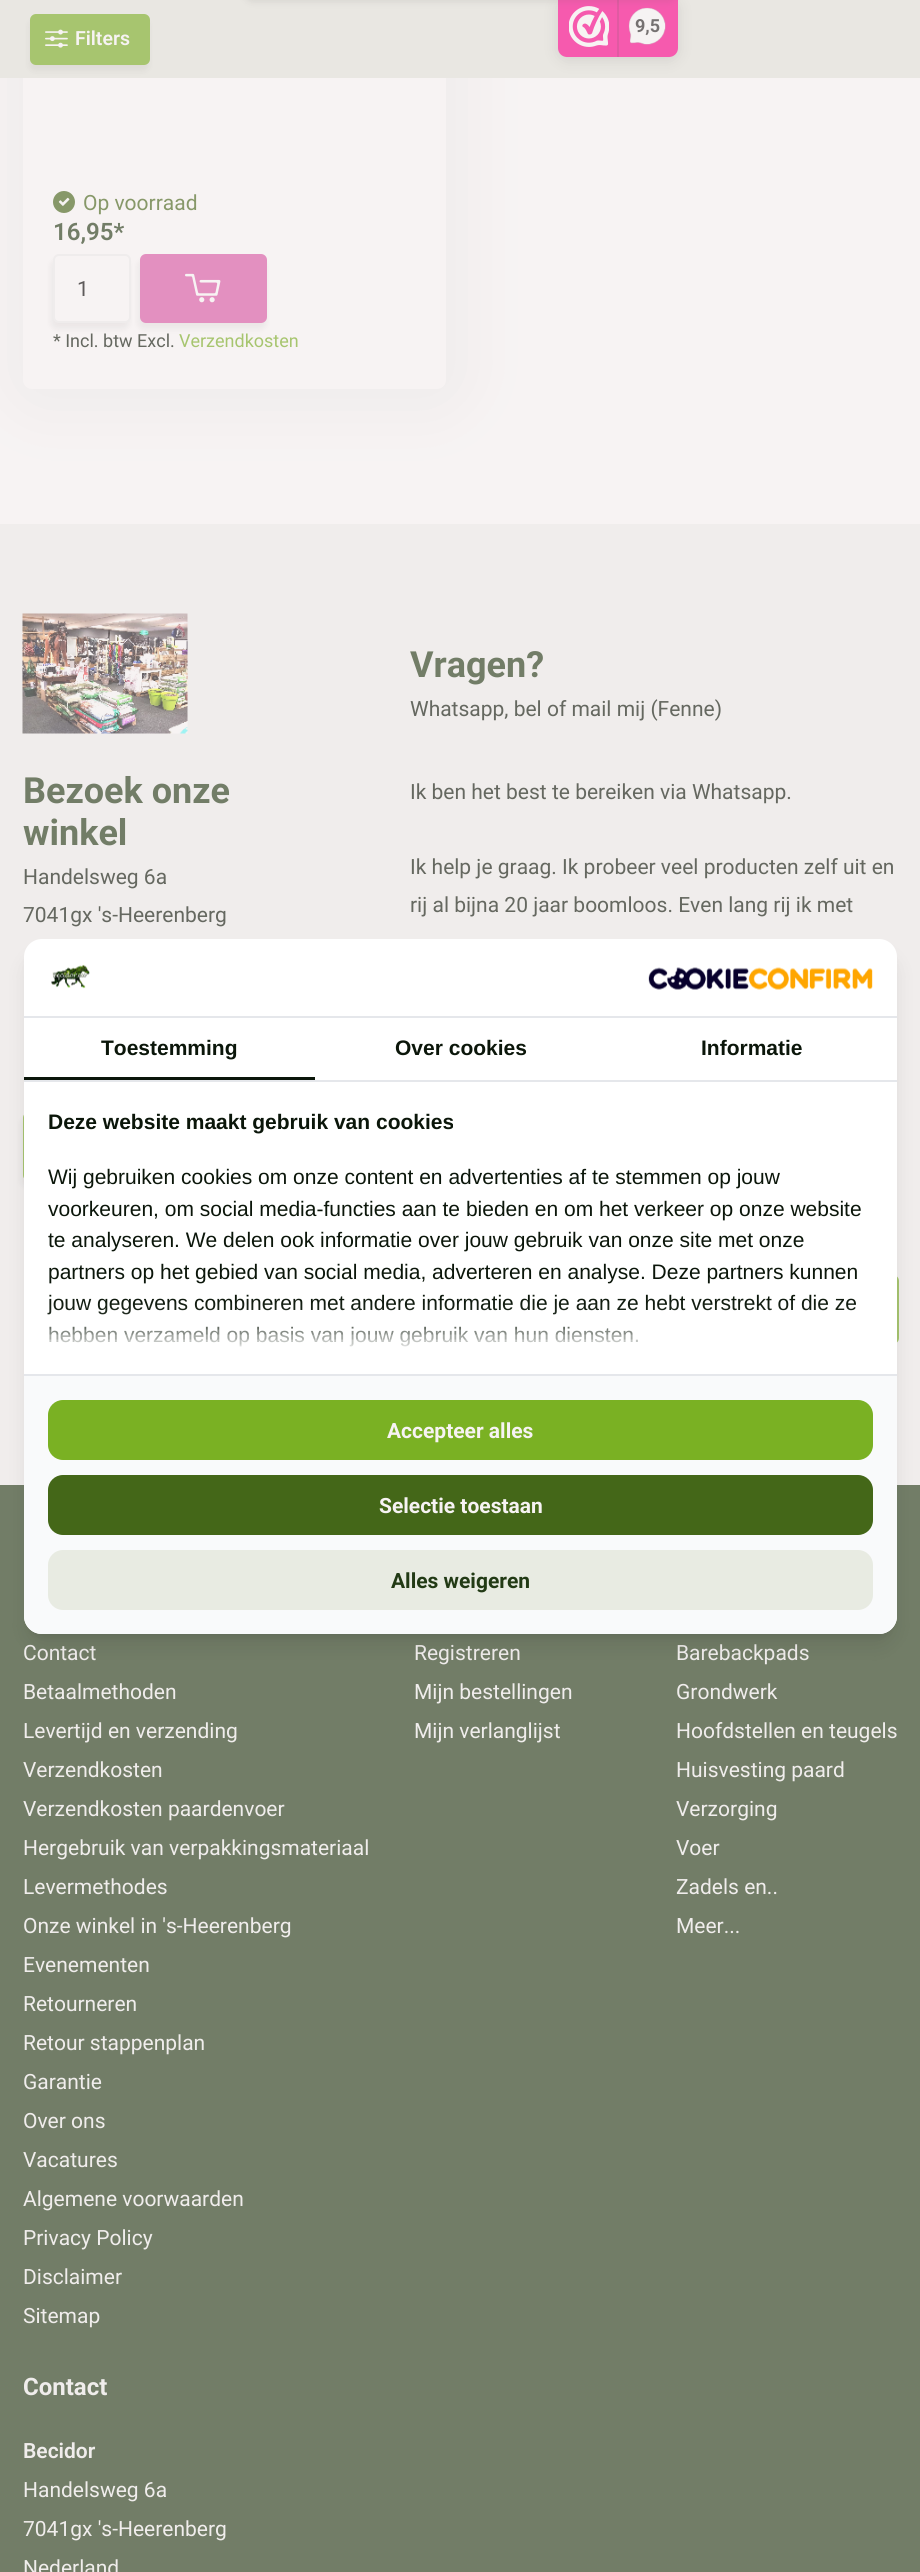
import math
import cairo

surface = cairo.ImageSurface(cairo.FORMAT_RGB24, 920, 2572)
ctx = cairo.Context(surface)
options = cairo.FontOptions()
options.set_hint_metrics(cairo.HINT_METRICS_OFF)
options.set_hint_style(cairo.HINT_STYLE_NONE)
ctx.set_font_options(options)
ctx.set_miter_limit(4)


def set_color(code):
    ctx.set_source_rgb(*(v / 255 for v in bytes.fromhex(code[-6:])))


def draw_text(x, y, s, family, size, color, bold=False, italic=False):
    ctx.select_font_face(family, cairo.FONT_SLANT_ITALIC if italic else cairo.FONT_SLANT_NORMAL, cairo.FONT_WEIGHT_BOLD if bold else cairo.FONT_WEIGHT_NORMAL)
    ctx.set_font_size(size)
    set_color(color)
    ctx.move_to(x, y)
    ctx.show_text(s)


def fill_rect(x, y, w, h, color):
    set_color(color)
    ctx.rectangle(x, y, w, h)
    ctx.fill()


def rounded_rect(x, y, w, h, r):
    ctx.new_sub_path()
    for i, (u, v) in enumerate([(x + w - r, y + h - r), (x + r, y + h - r), (x + r, y + r), (x + w - r, y + r)]):
        ctx.arc(u, v, r, i * math.pi / 2, (i + 1) * math.pi / 2)
    ctx.close_path()


def draw_shadow(x, y, w, h, r, blur, alpha):
    ctx.push_group_with_content(cairo.CONTENT_ALPHA)
    ctx.set_operator(cairo.OPERATOR_SOURCE)
    for i in range(15, -16, -2):
        e = blur * i / 6
        if min(w, h) + 2 * e > 0:
            ctx.set_source_rgba(0, 0, 0, alpha * math.erfc((i - 1) / 8.5) / 2)
            rounded_rect(x - e, y - e, w + 2 * e, h + 2 * e, max(0, min(r + e + blur * .6, min(w, h) / 2 + e)))
            ctx.fill()
    ctx.mask(ctx.pop_group())


def draw_image(path, x, y, w, h):
    ctx.save()
    ctx.set_source_surface(cairo.ImageSurface.create_from_png(path), x, y)
    ctx.rectangle(x, y, w, h)
    ctx.fill()
    ctx.restore()


set_color("#f7f3f3")
ctx.paint()
set_color("#758089")
draw_shadow(26, -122, 423, 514, 9, 37.5, 0.1)
set_color("#f7f3f3")
rounded_rect(23, -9, 423, 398, 9)
ctx.fill()
fill_rect(0, 0, 920, 78, "#e9e7e2")
set_color("#5e5a5a")
draw_shadow(558, 0, 120, 60, 9, 7.5, 0.15)
set_color("#f65aae")
ctx.new_path()
ctx.move_to(558, -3)
ctx.line_to(678, -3)
ctx.line_to(678, 48)
ctx.curve_to(678, 53, 674, 57, 669, 57)
ctx.line_to(567, 57)
ctx.curve_to(562, 57, 558, 53, 558, 48)
ctx.close_path()
ctx.fill()
draw_image("assets/img1.png", 569, 6, 40, 41)
fill_rect(617, 0, 2, 57, "#e05aa2")
draw_image("assets/img2.png", 628, 7, 38, 38)
set_color("#5e5a5a")
draw_shadow(243, -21, 435, 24, 12, 3, 0.1)
draw_text(635, 32, "9,5", "Roboto", 18, "#757171", bold=True)
set_color("#5e5a5a")
draw_shadow(29, 20, 120, 51, 6, 3, 0.08)
set_color("#a7c56f")
rounded_rect(30, 14, 120, 51, 6)
ctx.fill()
draw_image("assets/img3.png", 45, 29, 23, 19)
draw_text(75, 45, "Filters", "Roboto SemiBold", 19.5, "#f7f3f3")
set_color("#879869")
ctx.new_path()
ctx.arc(64, 202, 11, 0, 2 * math.pi)
ctx.fill()
draw_image("assets/img4.png", 58, 197, 12, 9)
draw_text(83, 210, "Op voorraad", "Roboto", 21, "#879869")
draw_text(53, 240, "16,95*", "Roboto SemiBold", 24, "#727d67")
set_color("#5e5a5a")
draw_shadow(51, 260, 78, 69, 6, 3, 0.08)
draw_shadow(138, 260, 128, 69, 6, 3, 0.08)
set_color("#f7f3f3")
rounded_rect(54, 255, 76, 67, 5)
ctx.fill_preserve()
set_color("#efecec")
ctx.stroke()
draw_text(77, 296, "1", "Roboto", 21, "#5e5a5a")
set_color("#e390c0")
rounded_rect(140, 254, 127, 69, 6)
ctx.fill()
draw_image("assets/img5.png", 185, 273, 36, 30)
draw_text(53, 347, "* Incl. btw Excl.", "Roboto", 18, "#656860")
draw_text(179, 347, "Verzendkosten", "Roboto", 18, "#a7c56f")
fill_rect(0, 1485, 920, 1087, "#727d67")
fill_rect(0, 524, 920, 961, "#f0edec")
draw_image("assets/img6.png", 22, 613, 166, 121)
draw_text(23, 803, "Bezoek onze", "Roboto", 36, "#727d67", bold=True)
draw_text(23, 845, "winkel", "Roboto", 36, "#727d67", bold=True)
draw_text(23, 884, "Handelsweg 6a", "Roboto", 21, "#656860")
draw_text(23, 922, "7041gx 's-Heerenberg", "Roboto", 21, "#656860")
set_color("#5e5a5a")
draw_shadow(21, 1118, 212, 69, 6, 3, 0.08)
set_color("#a7c56f")
rounded_rect(23, 1112, 211, 69, 6)
ctx.fill()
draw_text(410, 677, "Vragen?", "Roboto", 36, "#727d67", bold=True)
draw_text(410, 716, "Whatsapp, bel of mail mij (Fenne)", "Roboto", 21, "#656860")
draw_text(410, 799, "Ik ben het best te bereiken via Whatsapp.", "Roboto", 21, "#656860")
draw_text(410, 874, "Ik help je graag. Ik probeer veel producten zelf uit en", "Roboto", 21, "#656860")
draw_text(410, 912, "rij al bijna 20 jaar boomloos. Even lang rij ik met", "Roboto", 21, "#656860")
set_color("#a7c56f")
rounded_rect(728, 1275, 171, 69, 6)
ctx.fill()
draw_text(23, 1660, "Contact", "Roboto", 21, "#f0edec")
draw_text(23, 1699, "Betaalmethoden", "Roboto", 21, "#f0edec")
draw_text(23, 1738, "Levertijd en verzending", "Roboto", 21, "#f0edec")
draw_text(23, 1777, "Verzendkosten", "Roboto", 21, "#f0edec")
draw_text(23, 1816, "Verzendkosten paardenvoer", "Roboto", 21, "#f0edec")
draw_text(23, 1855, "Hergebruik van verpakkingsmateriaal", "Roboto", 21, "#f0edec")
draw_text(23, 1894, "Levermethodes", "Roboto", 21, "#f0edec")
draw_text(23, 1933, "Onze winkel in 's-Heerenberg", "Roboto", 21, "#f0edec")
draw_text(23, 1972, "Evenementen", "Roboto", 21, "#f0edec")
draw_text(23, 2011, "Retourneren", "Roboto", 21, "#f0edec")
draw_text(23, 2050, "Retour stappenplan", "Roboto", 21, "#f0edec")
draw_text(23, 2089, "Garantie", "Roboto", 21, "#f0edec")
draw_text(23, 2128, "Over ons", "Roboto", 21, "#f0edec")
draw_text(23, 2167, "Vacatures", "Roboto", 21, "#f0edec")
draw_text(23, 2206, "Algemene voorwaarden", "Roboto", 21, "#f0edec")
draw_text(23, 2245, "Privacy Policy", "Roboto", 21, "#f0edec")
draw_text(23, 2284, "Disclaimer", "Roboto", 21, "#f0edec")
draw_text(23, 2323, "Sitemap", "Roboto", 21, "#f0edec")
draw_text(414, 1660, "Registreren", "Roboto", 21, "#f0edec")
draw_text(414, 1699, "Mijn bestellingen", "Roboto", 21, "#f0edec")
draw_text(414, 1738, "Mijn verlanglijst", "Roboto", 21, "#f0edec")
draw_text(676, 1660, "Barebackpads", "Roboto", 21, "#f0edec")
draw_text(676, 1699, "Grondwerk", "Roboto", 21, "#f0edec")
draw_text(676, 1738, "Hoofdstellen en teugels", "Roboto", 21, "#f0edec")
draw_text(676, 1777, "Huisvesting paard", "Roboto", 21, "#f0edec")
draw_text(676, 1816, "Verzorging", "Roboto", 21, "#f0edec")
draw_text(676, 1855, "Voer", "Roboto", 21, "#f0edec")
draw_text(676, 1894, "Zadels en..", "Roboto", 21, "#f0edec")
draw_text(676, 1933, "Meer...", "Roboto", 21, "#f0edec")
draw_text(23, 2395, "Contact", "Roboto", 24, "#f0edec", bold=True)
draw_text(23, 2458, "Becidor", "Roboto SemiBold", 21, "#f0edec")
draw_text(23, 2497, "Handelsweg 6a", "Roboto", 21, "#f0edec")
draw_text(23, 2536, "7041gx 's-Heerenberg", "Roboto", 21, "#f0edec")
draw_text(23, 2575, "Nederland", "Roboto", 21, "#f0edec")
set_color("#000000")
draw_shadow(30, 951, 861, 683, 12, 4.5, 0.1)
draw_shadow(29, 959, 864, 685, 14, 11, 0.1)
set_color("#ffffff")
rounded_rect(24, 939, 873, 695, 18)
ctx.fill()
fill_rect(24, 1016, 873, 2, "#e5e7eb")
draw_image("assets/img7.png", 51, 964, 39, 25)
draw_image("assets/img8.png", 648, 967, 225, 23)
fill_rect(24, 1080, 873, 2, "#e5e7eb")
fill_rect(24, 1077, 291, 3, "#0b160a")
draw_text(101, 1055, "Toestemming", "Liberation Sans", 21, "#0b160a", bold=True)
draw_text(395, 1055, "Over cookies", "Liberation Sans", 21, "#0b160a", bold=True)
draw_text(701, 1055, "Informatie", "Liberation Sans", 21, "#0b160a", bold=True)
draw_text(48, 1129, "Deze website maakt gebruik van cookies", "Liberation Sans", 21, "#0b160a", bold=True)
draw_text(48, 1184, "Wij gebruiken cookies om onze content en advertenties af te stemmen op jouw", "Liberation Sans", 21, "#0b160a")
draw_text(48, 1216, "voorkeuren, om social media-functies aan te bieden en om het verkeer op onze website", "Liberation Sans", 21, "#0b160a")
draw_text(48, 1247, "te analyseren. We delen ook informatie over jouw gebruik van onze site met onze", "Liberation Sans", 21, "#0b160a")
draw_text(48, 1279, "partners op het gebied van social media, adverteren en analyse. Deze partners kunnen", "Liberation Sans", 21, "#0b160a")
draw_text(48, 1310, "jouw gegevens combineren met andere informatie die je aan ze hebt verstrekt of die ze", "Liberation Sans", 21, "#0b160a")
draw_text(48, 1342, "hebben verzameld op basis van jouw gebruik van hun diensten.", "Liberation Sans", 21, "#0b160a")
ctx.save()
rounded_rect(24, 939, 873, 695, 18)
ctx.clip()
set_color("#ffffff")
draw_shadow(12, 1332, 897, 284, 0, 15, 1)
ctx.restore()
set_color("#f9fafb")
ctx.new_path()
ctx.move_to(24, 1374)
ctx.line_to(897, 1374)
ctx.line_to(897, 1616)
ctx.curve_to(897, 1626, 889, 1634, 879, 1634)
ctx.line_to(42, 1634)
ctx.curve_to(32, 1634, 24, 1626, 24, 1616)
ctx.close_path()
ctx.fill()
fill_rect(24, 1374, 873, 2, "#e5e7eb")
set_color("#7ab123")
rounded_rect(48, 1400, 825, 60, 15)
ctx.fill()
draw_text(387, 1438, "Accepteer alles", "Roboto", 21, "#f7f3f3", bold=True)
set_color("#446718")
rounded_rect(48, 1475, 825, 60, 15)
ctx.fill()
draw_text(379, 1513, "Selectie toestaan", "Roboto", 21, "#f7f3f3", bold=True)
set_color("#e8ebe2")
rounded_rect(48, 1550, 825, 60, 15)
ctx.fill()
draw_text(391, 1588, "Alles weigeren", "Roboto", 21, "#223a15", bold=True)
surface.write_to_png("output.png")
